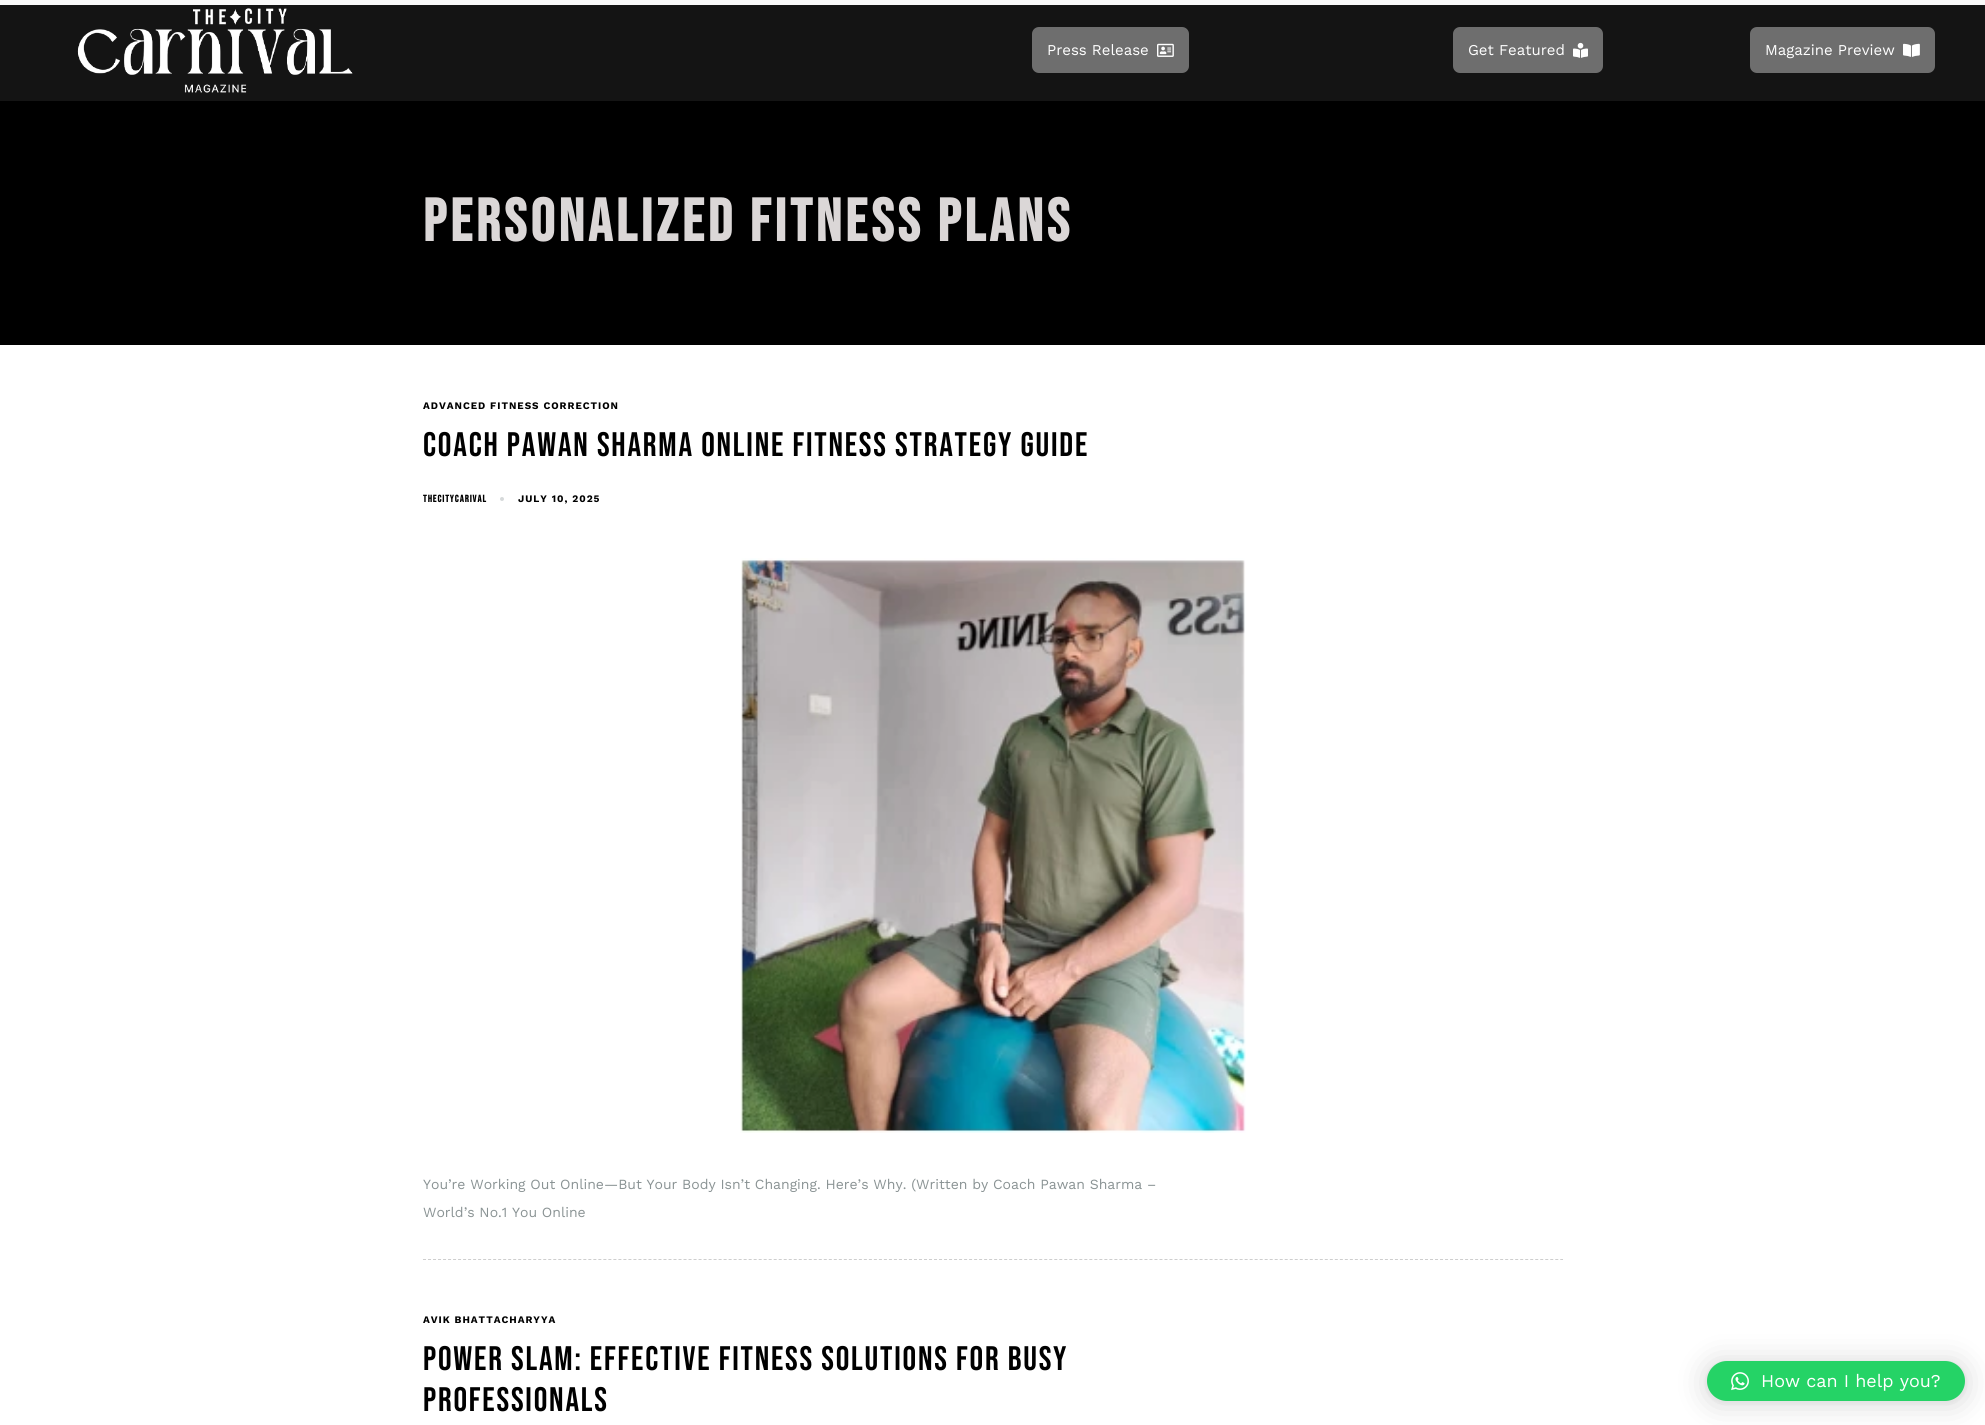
import math
import cairo

surface = cairo.ImageSurface(cairo.FORMAT_RGB24, 1985, 1425)
ctx = cairo.Context(surface)
options = cairo.FontOptions()
options.set_hint_metrics(cairo.HINT_METRICS_OFF)
options.set_hint_style(cairo.HINT_STYLE_NONE)
ctx.set_font_options(options)
ctx.set_miter_limit(4)


def set_color(code):
    ctx.set_source_rgb(*(v / 255 for v in bytes.fromhex(code[-6:])))


def draw_text(x, y, s, family, size, color, bold=False, italic=False):
    ctx.select_font_face(family, cairo.FONT_SLANT_ITALIC if italic else cairo.FONT_SLANT_NORMAL, cairo.FONT_WEIGHT_BOLD if bold else cairo.FONT_WEIGHT_NORMAL)
    ctx.set_font_size(size)
    set_color(color)
    ctx.move_to(x, y)
    ctx.show_text(s)


def draw_spaced(x, y, s, letter, word):
    ctx.move_to(x, y)
    for ch in s:
        ctx.show_text(ch)
        ctx.rel_move_to(letter + word * (ch == ' '), 0)


def fill_rect(x, y, w, h, color):
    set_color(color)
    ctx.rectangle(x, y, w, h)
    ctx.fill()


def rounded_rect(x, y, w, h, r):
    ctx.new_sub_path()
    for i, (u, v) in enumerate([(x + w - r, y + h - r), (x + r, y + h - r), (x + r, y + r), (x + w - r, y + r)]):
        ctx.arc(u, v, r, i * math.pi / 2, (i + 1) * math.pi / 2)
    ctx.close_path()


def draw_shadow(x, y, w, h, r, blur, alpha):
    ctx.push_group_with_content(cairo.CONTENT_ALPHA)
    ctx.set_operator(cairo.OPERATOR_SOURCE)
    for i in range(15, -16, -2):
        e = blur * i / 6
        if min(w, h) + 2 * e > 0:
            ctx.set_source_rgba(0, 0, 0, alpha * math.erfc((i - 1) / 8.5) / 2)
            rounded_rect(x - e, y - e, w + 2 * e, h + 2 * e, max(0, min(r + e + blur * .6, min(w, h) / 2 + e)))
            ctx.fill()
    ctx.mask(ctx.pop_group())


def draw_image(path, x, y, w, h):
    ctx.save()
    ctx.set_source_surface(cairo.ImageSurface.create_from_png(path), x, y)
    ctx.rectangle(x, y, w, h)
    ctx.fill()
    ctx.restore()


set_color("#ffffff")
ctx.paint()
fill_rect(0, 0, 1985, 5, "#f9f9f9")
fill_rect(0, 101, 1985, 244, "#000000")
fill_rect(0, 5, 1985, 96, "#141414")
draw_image("assets/img1.png", 77, 8, 276, 85)
set_color("#6e6e6e")
rounded_rect(1032, 27, 157, 46, 7)
ctx.fill()
draw_text(1047, 55, "Press Release", "Work Sans", 15, "#ffffff")
draw_image("assets/img2.png", 1157, 43, 17, 14)
set_color("#6e6e6e")
rounded_rect(1453, 27, 150, 46, 7)
ctx.fill()
draw_text(1468, 55, "Get Featured", "Work Sans", 15, "#ffffff")
draw_image("assets/img3.png", 1573, 42, 15, 16)
set_color("#6e6e6e")
rounded_rect(1750, 27, 185, 46, 7)
ctx.fill()
draw_text(1765, 55, "Magazine Preview", "Work Sans", 15, "#ffffff")
draw_image("assets/img4.png", 1903, 43, 17, 14)
ctx.select_font_face("Bebas Neue", cairo.FONT_SLANT_NORMAL, cairo.FONT_WEIGHT_BOLD)
ctx.set_font_size(60)
set_color("#dbd7d7")
draw_spaced(423, 241, "PERSONALIZED FITNESS PLANS", 4, 0)
ctx.new_path()
ctx.move_to(423, 1259.5)
ctx.line_to(1563, 1259.5)
set_color("#cecece")
ctx.set_line_width(1)
ctx.set_dash([3, 2.01])
ctx.stroke()
ctx.select_font_face("Work Sans", cairo.FONT_SLANT_NORMAL, cairo.FONT_WEIGHT_BOLD)
ctx.set_font_size(10)
set_color("#000000")
draw_spaced(423, 409, "ADVANCED FITNESS CORRECTION", 1, 0)
ctx.select_font_face("Bebas Neue")
ctx.set_font_size(34)
draw_spaced(423, 456, "COACH PAWAN SHARMA ONLINE FITNESS STRATEGY GUIDE", 1.8, 0)
ctx.select_font_face("Bebas Neue", cairo.FONT_SLANT_NORMAL, cairo.FONT_WEIGHT_BOLD)
ctx.set_font_size(10)
draw_spaced(423, 502, "THECITYCARIVAL", 1, 0)
set_color("#d6d9da")
ctx.new_path()
ctx.arc(502, 499, 2, 0, 2 * math.pi)
ctx.fill()
ctx.select_font_face("Work Sans", cairo.FONT_SLANT_NORMAL, cairo.FONT_WEIGHT_BOLD)
set_color("#000000")
draw_spaced(518, 502, "JULY 10, 2025", 1, 0)
draw_image("assets/img5.png", 740, 558, 506, 575)
draw_text(423, 1189, "You’re Working Out Online—But Your Body Isn’t Changing. Here’s Why. (Written by Coach Pawan Sharma –", "Work Sans", 14, "#8a9394")
draw_text(423, 1217, "World’s No.1 You Online", "Work Sans", 14, "#8a9394")
ctx.select_font_face("Work Sans", cairo.FONT_SLANT_NORMAL, cairo.FONT_WEIGHT_BOLD)
ctx.set_font_size(10)
set_color("#000000")
draw_spaced(423, 1323, "AVIK BHATTACHARYYA", 1, 0)
ctx.select_font_face("Bebas Neue")
ctx.set_font_size(34)
draw_spaced(423, 1370, "POWER SLAM: EFFECTIVE FITNESS SOLUTIONS FOR BUSY", 1.8, 0)
draw_spaced(423, 1411, "PROFESSIONALS", 1.8, 0)
set_color("#000000")
draw_shadow(1707, 1363, 258, 40, 20, 16, 0.16)
draw_shadow(1707, 1362, 258, 40, 20, 3, 0.06)
set_color("#25d366")
rounded_rect(1707, 1361, 258, 40, 20)
ctx.fill()
draw_image("assets/img6.png", 1731, 1372, 18, 19)
draw_text(1761, 1387, "How can I help you?", "Work Sans", 18, "#ffffff")
surface.write_to_png("output.png")
